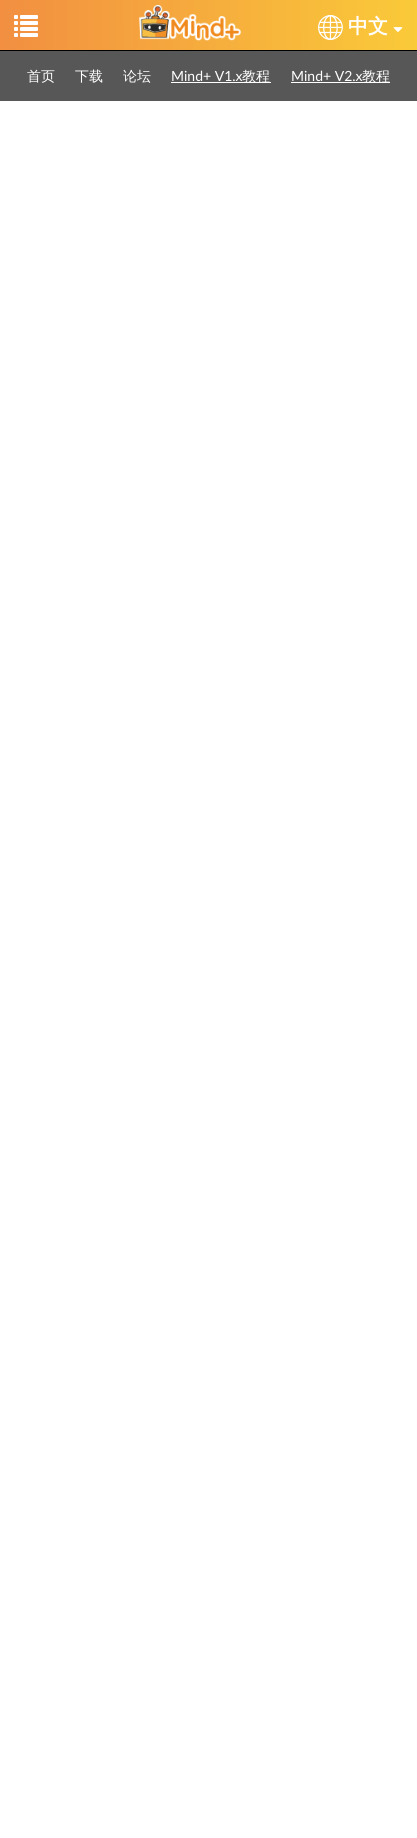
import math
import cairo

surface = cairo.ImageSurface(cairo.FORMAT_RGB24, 417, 1838)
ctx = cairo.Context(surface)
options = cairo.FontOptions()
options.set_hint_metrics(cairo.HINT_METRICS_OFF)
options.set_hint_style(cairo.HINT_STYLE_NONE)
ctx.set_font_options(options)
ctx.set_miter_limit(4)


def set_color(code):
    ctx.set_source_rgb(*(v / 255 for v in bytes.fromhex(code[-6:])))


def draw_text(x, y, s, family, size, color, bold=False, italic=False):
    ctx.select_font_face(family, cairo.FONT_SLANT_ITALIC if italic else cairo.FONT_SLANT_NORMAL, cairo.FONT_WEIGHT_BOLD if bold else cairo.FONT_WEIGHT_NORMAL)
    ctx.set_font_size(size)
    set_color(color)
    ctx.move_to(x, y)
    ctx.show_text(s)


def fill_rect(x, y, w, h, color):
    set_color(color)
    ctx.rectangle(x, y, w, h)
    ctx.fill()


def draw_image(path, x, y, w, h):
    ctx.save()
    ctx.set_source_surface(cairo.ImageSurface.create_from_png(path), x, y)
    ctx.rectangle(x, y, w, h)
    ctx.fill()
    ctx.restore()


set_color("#ffffff")
ctx.paint()
gradient = cairo.LinearGradient(0, 26, 417, 25)
gradient.add_color_stop_rgba(0, 0.949, 0.561, 0.255, 1)
gradient.add_color_stop_rgba(1, 0.98, 0.792, 0.224, 1)
ctx.set_source(gradient)
ctx.rectangle(0, 0, 417, 50)
ctx.fill()
draw_image("assets/img1.png", 14, 15, 24, 22)
draw_image("assets/img2.png", 139, 5, 102, 36)
draw_image("assets/img3.png", 318, 15, 25, 25)
draw_text(348, 33, "中文", "WenQuanYi Zen Hei", 20, "#ffffff", bold=True)
draw_image("assets/img4.png", 393, 27, 10, 5)
fill_rect(0, 51, 417, 50, "#585757")
fill_rect(0, 50, 417, 1, "#000000")
draw_text(27, 81, "首页", "WenQuanYi Zen Hei Medium", 14, "#ffffff")
draw_text(75, 81, "下载", "WenQuanYi Zen Hei Medium", 14, "#ffffff")
draw_text(123, 81, "论坛", "WenQuanYi Zen Hei Medium", 14, "#ffffff")
draw_text(171, 81, "Mind+ V1.x", "Lato", 14, "#ffffff")
fill_rect(171, 82, 100, 1, "#ffffff")
draw_text(242, 81, "教程", "WenQuanYi Zen Hei Medium", 14, "#ffffff")
draw_text(291, 81, "Mind+ V2.x", "Lato", 14, "#ffffff")
fill_rect(291, 82, 99, 1, "#ffffff")
draw_text(362, 81, "教程", "WenQuanYi Zen Hei Medium", 14, "#ffffff")
surface.write_to_png("output.png")
